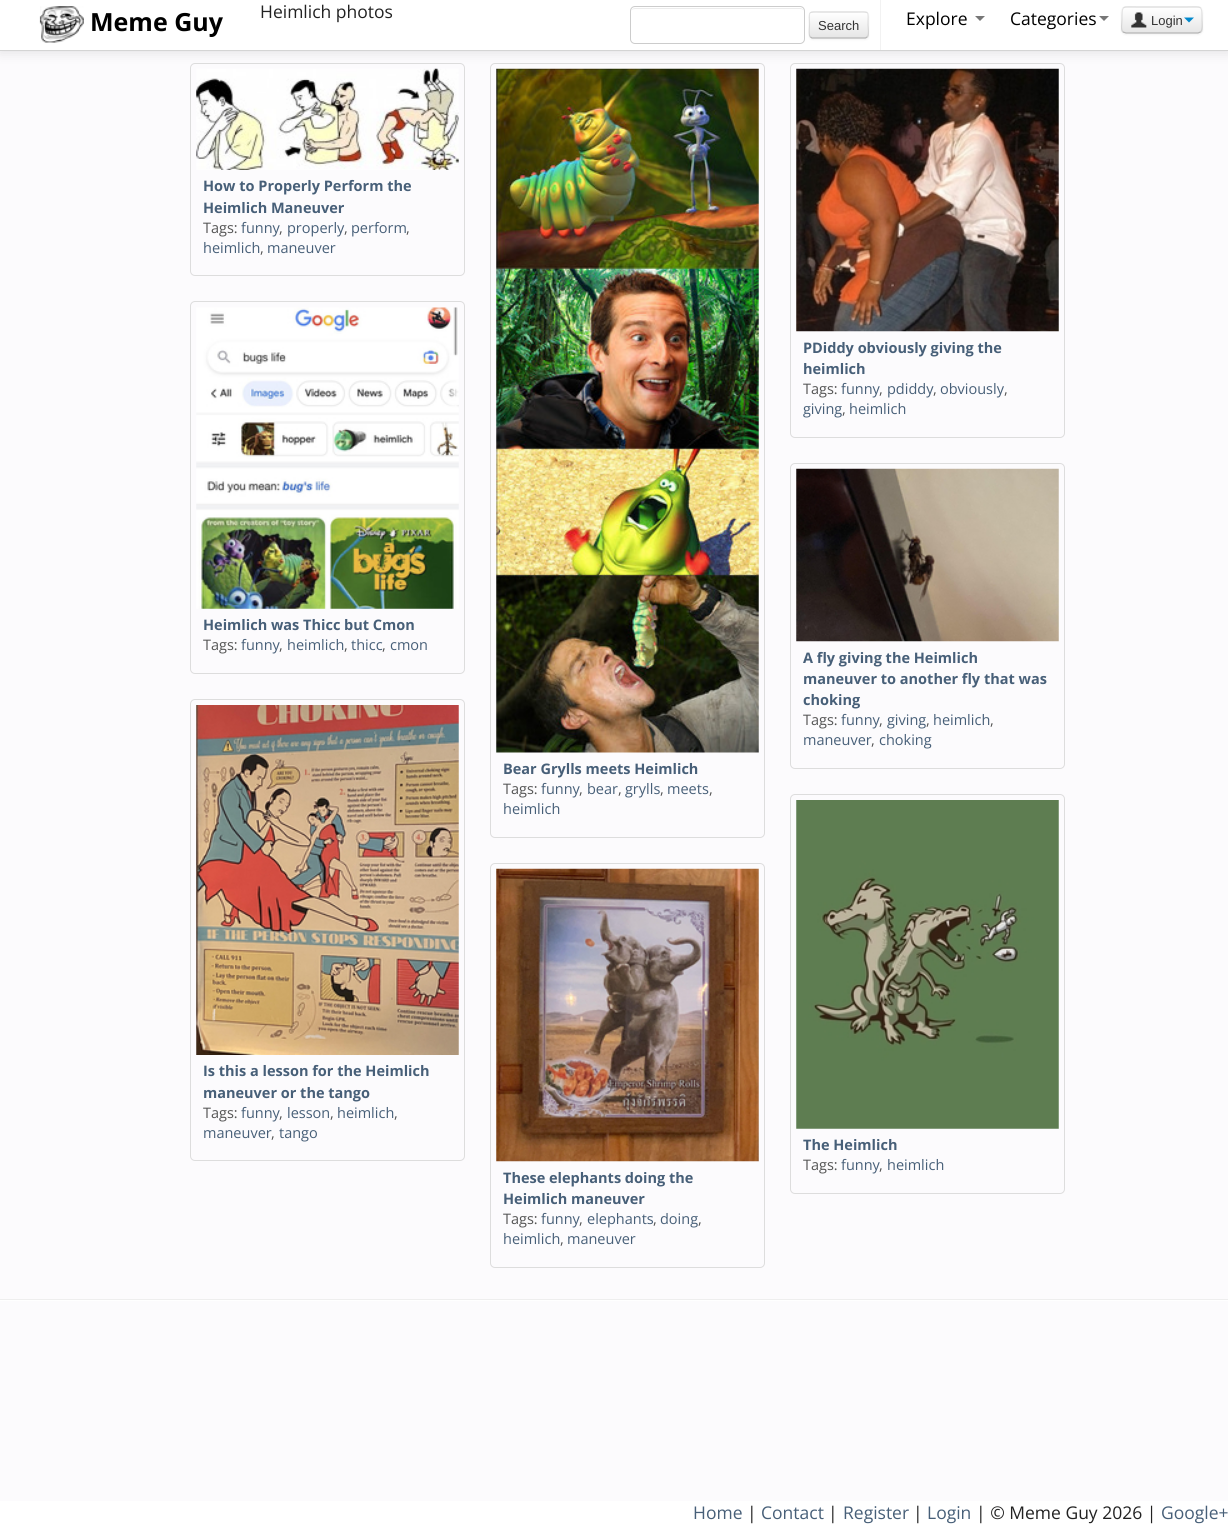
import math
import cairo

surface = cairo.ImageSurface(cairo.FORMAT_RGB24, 1228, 1526)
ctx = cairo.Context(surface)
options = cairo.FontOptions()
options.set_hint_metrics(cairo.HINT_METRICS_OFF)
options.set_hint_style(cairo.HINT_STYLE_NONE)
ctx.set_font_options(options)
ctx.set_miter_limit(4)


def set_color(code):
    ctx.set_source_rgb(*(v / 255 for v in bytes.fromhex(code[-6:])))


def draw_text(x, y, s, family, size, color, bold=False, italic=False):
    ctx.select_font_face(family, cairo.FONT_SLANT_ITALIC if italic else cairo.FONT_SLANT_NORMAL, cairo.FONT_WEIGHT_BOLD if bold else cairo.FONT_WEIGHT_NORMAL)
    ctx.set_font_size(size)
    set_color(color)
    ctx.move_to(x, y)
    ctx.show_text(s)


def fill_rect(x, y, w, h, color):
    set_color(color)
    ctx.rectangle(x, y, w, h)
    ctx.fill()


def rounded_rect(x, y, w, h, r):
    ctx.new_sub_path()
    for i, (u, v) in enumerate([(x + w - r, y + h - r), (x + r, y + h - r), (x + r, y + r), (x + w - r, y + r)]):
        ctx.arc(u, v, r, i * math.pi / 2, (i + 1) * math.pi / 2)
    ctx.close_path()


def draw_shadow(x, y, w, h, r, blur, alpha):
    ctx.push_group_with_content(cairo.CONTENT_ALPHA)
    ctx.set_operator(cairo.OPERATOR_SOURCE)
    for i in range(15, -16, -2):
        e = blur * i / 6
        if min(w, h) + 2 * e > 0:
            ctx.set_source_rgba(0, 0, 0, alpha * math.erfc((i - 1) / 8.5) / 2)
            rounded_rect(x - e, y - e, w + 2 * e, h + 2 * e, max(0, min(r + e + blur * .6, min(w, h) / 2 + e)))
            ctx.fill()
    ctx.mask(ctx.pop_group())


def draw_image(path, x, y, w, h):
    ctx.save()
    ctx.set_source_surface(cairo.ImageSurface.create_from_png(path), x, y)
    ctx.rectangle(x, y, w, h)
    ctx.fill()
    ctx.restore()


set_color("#fcfbfd")
ctx.paint()
rounded_rect(190.5, 63.5, 274, 212, 4.5)
set_color("#dddddd")
ctx.set_line_width(1)
ctx.stroke()
draw_image("assets/img3.png", 196, 68, 263, 102)
rounded_rect(790.5, 63.5, 274, 374, 4.5)
ctx.stroke()
draw_image("assets/img4.png", 796, 68, 263, 264)
rounded_rect(490.5, 63.5, 274, 774, 4.5)
ctx.stroke()
draw_image("assets/img7.png", 496, 68, 263, 685)
set_color("#000000")
draw_shadow(0, 1, 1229, 52, 0, 6, 0.1)
fill_rect(0, 0, 1228, 50, "#ffffff")
fill_rect(0, 50, 1228, 1, "#d4d4d4")
draw_image("assets/img1.png", 39, 6, 45, 37)
draw_text(90, 31, "Meme Guy", "Open Sans", 25, "#000000", bold=True)
draw_text(260, 18, "Heimlich photos", "Open Sans", 17.5, "#222222")
set_color("#ececec")
ctx.new_path()
ctx.move_to(635, 9)
ctx.line_to(800, 9)
ctx.curve_to(802, 9, 804, 10, 804, 12)
ctx.curve_to(804, 10, 802, 8, 800, 8)
ctx.line_to(635, 8)
ctx.curve_to(633, 8, 631, 10, 631, 12)
ctx.curve_to(631, 10, 633, 9, 635, 9)
ctx.close_path()
ctx.fill()
rounded_rect(630.5, 6.5, 174, 37, 4.5)
set_color("#cccccc")
ctx.stroke()
set_color("#000000")
draw_shadow(809, 13, 60, 27, 4, 1, 0.05)
set_color("#f5f5f5")
rounded_rect(809, 11, 60, 28, 4)
ctx.fill()
ctx.save()
rounded_rect(809, 11, 60, 28, 4)
ctx.clip()
gradient = cairo.LinearGradient(839, 12, 839, 38)
gradient.add_color_stop_rgba(0, 1, 1, 1, 1)
gradient.add_color_stop_rgba(1, 0.902, 0.902, 0.902, 1)
ctx.set_source(gradient)
ctx.rectangle(809, 13, 60, 25)
ctx.fill()
ctx.restore()
set_color("#fefefe")
ctx.new_path()
ctx.move_to(812, 14)
ctx.line_to(865, 14)
ctx.curve_to(866, 14, 868, 15, 868, 16)
ctx.curve_to(868, 11, 859, 13, 857, 13)
ctx.line_to(821, 13)
ctx.curve_to(819, 13, 810, 11, 810, 16)
ctx.curve_to(810, 15, 811, 14, 812, 14)
ctx.close_path()
ctx.fill()
ctx.new_path()
ctx.move_to(867, 37)
ctx.line_to(865.5, 38)
ctx.line_to(812, 38)
ctx.line_to(810.5, 37)
set_color("#b3b3b3")
ctx.set_line_width(1.2)
ctx.stroke()
ctx.new_path()
ctx.move_to(810.5, 37)
ctx.curve_to(808, 35, 809.5, 27.5, 809.5, 25)
ctx.curve_to(809.5, 10.5, 807, 12, 821, 12)
ctx.line_to(856, 12)
ctx.curve_to(870.5, 12, 868, 10.5, 868, 25)
ctx.curve_to(868, 27.5, 869.5, 35, 867, 37)
ctx.set_source_rgba(0, 0, 0, 0.1)
ctx.stroke()
draw_text(818, 30, "Search", "Liberation Sans", 13, "#333333")
fill_rect(880, 0, 1, 50, "#f2f2f2")
draw_text(906, 25, "Explore", "Open Sans", 17.5, "#000000")
set_color("#777777")
ctx.new_path()
ctx.move_to(975, 16)
ctx.line_to(985, 16)
ctx.line_to(980, 21)
ctx.close_path()
ctx.fill()
draw_text(1010, 25, "Categories", "Open Sans", 17.5, "#000000")
set_color("#777777")
ctx.new_path()
ctx.move_to(1099, 16)
ctx.line_to(1109, 16)
ctx.line_to(1104, 21)
ctx.close_path()
ctx.fill()
set_color("#000000")
draw_shadow(1121, 8, 82, 27, 5, 1, 0.05)
set_color("#f5f5f5")
rounded_rect(1121, 6, 82, 28, 5)
ctx.fill()
ctx.save()
rounded_rect(1121, 6, 82, 28, 5)
ctx.clip()
gradient = cairo.LinearGradient(1162, 7.5, 1162, 33)
gradient.add_color_stop_rgba(0, 1, 1, 1, 1)
gradient.add_color_stop_rgba(1, 0.902, 0.902, 0.902, 1)
ctx.set_source(gradient)
ctx.rectangle(1121, 8, 82, 25)
ctx.fill()
ctx.restore()
ctx.new_path()
ctx.move_to(1200.5, 32)
ctx.line_to(1198, 33)
ctx.line_to(1126, 33)
ctx.line_to(1123, 32)
set_color("#b3b3b3")
ctx.stroke()
ctx.new_path()
ctx.move_to(1123, 32)
ctx.curve_to(1120.5, 29.5, 1122, 23, 1122, 20)
ctx.curve_to(1122, 4.5, 1121.5, 7, 1138, 7)
ctx.line_to(1185.5, 7)
ctx.curve_to(1202.5, 7, 1202, 4.5, 1202, 20)
ctx.curve_to(1202, 23, 1203, 29.5, 1200.5, 32)
ctx.set_source_rgba(0, 0, 0, 0.1)
ctx.stroke()
draw_image("assets/img2.png", 1131, 12, 16, 16)
draw_text(1151, 25, "Login", "Liberation Sans", 13, "#333333")
set_color("#0088cc")
ctx.new_path()
ctx.move_to(1184, 17.5)
ctx.line_to(1194, 17.5)
ctx.line_to(1189, 22.5)
ctx.close_path()
ctx.fill()
draw_text(203, 191, "How to Properly Perform the", "Open Sans", 14.5, "#475f78", bold=True)
draw_text(203, 213, "Heimlich Maneuver", "Open Sans", 14.5, "#475f78", bold=True)
draw_text(203, 233, "Tags:", "Open Sans", 14.5, "#555555")
draw_text(241, 233, "funny", "Open Sans", 14.5, "#475f78")
draw_text(279, 233, ",", "Open Sans", 14.5, "#555555")
draw_text(287, 233, "properly", "Open Sans", 14.5, "#475f78")
draw_text(344, 233, ",", "Open Sans", 14.5, "#555555")
draw_text(351, 233, "perform", "Open Sans", 14.5, "#475f78")
draw_text(406, 233, ",", "Open Sans", 14.5, "#555555")
draw_text(203, 253, "heimlich", "Open Sans", 14.5, "#475f78")
draw_text(260, 253, ",", "Open Sans", 14.5, "#555555")
draw_text(267, 253, "maneuver", "Open Sans", 14.5, "#475f78")
draw_text(803, 353, "PDiddy obviously giving the", "Open Sans", 14.5, "#475f78", bold=True)
draw_text(803, 374, "heimlich", "Open Sans", 14.5, "#475f78", bold=True)
draw_text(803, 394, "Tags:", "Open Sans", 14.5, "#555555")
draw_text(841, 394, "funny", "Open Sans", 14.5, "#475f78")
draw_text(879, 394, ",", "Open Sans", 14.5, "#555555")
draw_text(887, 394, "pdiddy", "Open Sans", 14.5, "#475f78")
draw_text(933, 394, ",", "Open Sans", 14.5, "#555555")
draw_text(940, 394, "obviously", "Open Sans", 14.5, "#475f78")
draw_text(1004, 394, ",", "Open Sans", 14.5, "#555555")
draw_text(803, 414, "giving", "Open Sans", 14.5, "#475f78")
draw_text(842, 414, ",", "Open Sans", 14.5, "#555555")
draw_text(849, 414, "heimlich", "Open Sans", 14.5, "#475f78")
rounded_rect(190.5, 301.5, 274, 372, 4.5)
set_color("#dddddd")
ctx.set_line_width(1)
ctx.stroke()
draw_image("assets/img5.png", 196, 307, 263, 302)
draw_text(203, 630, "Heimlich was Thicc but Cmon", "Open Sans", 14.5, "#475f78", bold=True)
draw_text(203, 650, "Tags:", "Open Sans", 14.5, "#555555")
draw_text(241, 650, "funny", "Open Sans", 14.5, "#475f78")
draw_text(279, 650, ",", "Open Sans", 14.5, "#555555")
draw_text(287, 650, "heimlich", "Open Sans", 14.5, "#475f78")
draw_text(344, 650, ",", "Open Sans", 14.5, "#555555")
draw_text(351, 650, "thicc", "Open Sans", 14.5, "#475f78")
draw_text(382, 650, ",", "Open Sans", 14.5, "#555555")
draw_text(390, 650, "cmon", "Open Sans", 14.5, "#475f78")
rounded_rect(790.5, 463.5, 274, 305, 4.5)
set_color("#dddddd")
ctx.stroke()
draw_image("assets/img6.png", 796, 468, 263, 174)
draw_text(803, 663, "A fly giving the Heimlich", "Open Sans", 14.5, "#475f78", bold=True)
draw_text(803, 684, "maneuver to another fly that was", "Open Sans", 14.5, "#475f78", bold=True)
draw_text(803, 705, "choking", "Open Sans", 14.5, "#475f78", bold=True)
draw_text(803, 725, "Tags:", "Open Sans", 14.5, "#555555")
draw_text(841, 725, "funny", "Open Sans", 14.5, "#475f78")
draw_text(879, 725, ",", "Open Sans", 14.5, "#555555")
draw_text(887, 725, "giving", "Open Sans", 14.5, "#475f78")
draw_text(926, 725, ",", "Open Sans", 14.5, "#555555")
draw_text(933, 725, "heimlich", "Open Sans", 14.5, "#475f78")
draw_text(990, 725, ",", "Open Sans", 14.5, "#555555")
draw_text(803, 745, "maneuver", "Open Sans", 14.5, "#475f78")
draw_text(871, 745, ",", "Open Sans", 14.5, "#555555")
draw_text(879, 745, "choking", "Open Sans", 14.5, "#475f78")
draw_text(503, 774, "Bear Grylls meets Heimlich", "Open Sans", 14.5, "#475f78", bold=True)
draw_text(503, 794, "Tags:", "Open Sans", 14.5, "#555555")
draw_text(541, 794, "funny", "Open Sans", 14.5, "#475f78")
draw_text(579, 794, ",", "Open Sans", 14.5, "#555555")
draw_text(587, 794, "bear", "Open Sans", 14.5, "#475f78")
draw_text(618, 794, ",", "Open Sans", 14.5, "#555555")
draw_text(625, 794, "grylls", "Open Sans", 14.5, "#475f78")
draw_text(660, 794, ",", "Open Sans", 14.5, "#555555")
draw_text(667, 794, "meets", "Open Sans", 14.5, "#475f78")
draw_text(709, 794, ",", "Open Sans", 14.5, "#555555")
draw_text(503, 814, "heimlich", "Open Sans", 14.5, "#475f78")
rounded_rect(190.5, 699.5, 274, 461, 4.5)
set_color("#dddddd")
ctx.stroke()
draw_image("assets/img8.png", 196, 705, 263, 350)
draw_text(203, 1076, "Is this a lesson for the Heimlich", "Open Sans", 14.5, "#475f78", bold=True)
draw_text(203, 1098, "maneuver or the tango", "Open Sans", 14.5, "#475f78", bold=True)
draw_text(203, 1118, "Tags:", "Open Sans", 14.5, "#555555")
draw_text(241, 1118, "funny", "Open Sans", 14.5, "#475f78")
draw_text(279, 1118, ",", "Open Sans", 14.5, "#555555")
draw_text(287, 1118, "lesson", "Open Sans", 14.5, "#475f78")
draw_text(330, 1118, ",", "Open Sans", 14.5, "#555555")
draw_text(337, 1118, "heimlich", "Open Sans", 14.5, "#475f78")
draw_text(394, 1118, ",", "Open Sans", 14.5, "#555555")
draw_text(203, 1138, "maneuver", "Open Sans", 14.5, "#475f78")
draw_text(271, 1138, ",", "Open Sans", 14.5, "#555555")
draw_text(279, 1138, "tango", "Open Sans", 14.5, "#475f78")
rounded_rect(790.5, 794.5, 274, 399, 4.5)
set_color("#dddddd")
ctx.stroke()
draw_image("assets/img9.png", 796, 800, 263, 329)
draw_text(803, 1150, "The Heimlich", "Open Sans", 14.5, "#475f78", bold=True)
draw_text(803, 1170, "Tags:", "Open Sans", 14.5, "#555555")
draw_text(841, 1170, "funny", "Open Sans", 14.5, "#475f78")
draw_text(879, 1170, ",", "Open Sans", 14.5, "#555555")
draw_text(887, 1170, "heimlich", "Open Sans", 14.5, "#475f78")
rounded_rect(490.5, 863.5, 274, 404, 4.5)
set_color("#dddddd")
ctx.stroke()
draw_image("assets/img10.png", 496, 868, 263, 294)
draw_text(503, 1183, "These elephants doing the", "Open Sans", 14.5, "#475f78", bold=True)
draw_text(503, 1204, "Heimlich maneuver", "Open Sans", 14.5, "#475f78", bold=True)
draw_text(503, 1224, "Tags:", "Open Sans", 14.5, "#555555")
draw_text(541, 1224, "funny", "Open Sans", 14.5, "#475f78")
draw_text(579, 1224, ",", "Open Sans", 14.5, "#555555")
draw_text(587, 1224, "elephants", "Open Sans", 14.5, "#475f78")
draw_text(653, 1224, ",", "Open Sans", 14.5, "#555555")
draw_text(660, 1224, "doing", "Open Sans", 14.5, "#475f78")
draw_text(698, 1224, ",", "Open Sans", 14.5, "#555555")
draw_text(503, 1244, "heimlich", "Open Sans", 14.5, "#475f78")
draw_text(560, 1244, ",", "Open Sans", 14.5, "#555555")
draw_text(567, 1244, "maneuver", "Open Sans", 14.5, "#475f78")
fill_rect(0, 1299, 1228, 1, "#eeeeee")
fill_rect(0, 1300, 1228, 1, "#ffffff")
fill_rect(0, 1501, 1228, 25, "#ffffff")
draw_text(693, 1519, "Home", "Open Sans", 17.5, "#475f78")
draw_text(747, 1519, "|", "Open Sans", 17.5, "#222222")
draw_text(761, 1519, "Contact", "Open Sans", 17.5, "#475f78")
draw_text(828, 1519, "|", "Open Sans", 17.5, "#222222")
draw_text(843, 1519, "Register", "Open Sans", 17.5, "#475f78")
draw_text(913, 1519, "|", "Open Sans", 17.5, "#222222")
draw_text(927, 1519, "Login", "Open Sans", 17.5, "#475f78")
draw_text(976, 1519, "| © Meme Guy 2026 |", "Open Sans", 17.5, "#222222")
draw_text(1161, 1519, "Google+", "Open Sans", 17.5, "#475f78")
surface.write_to_png("output.png")
